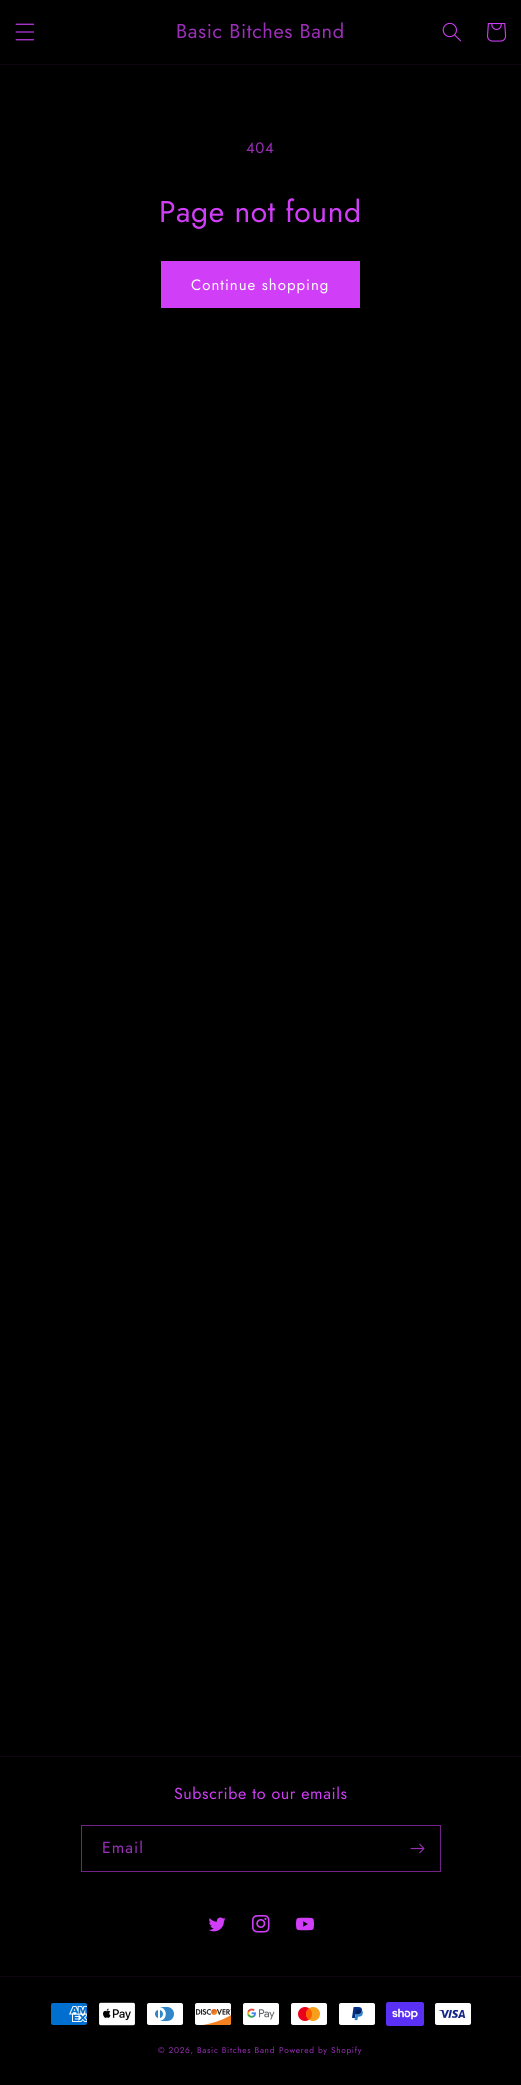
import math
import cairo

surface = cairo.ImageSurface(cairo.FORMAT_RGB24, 521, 2085)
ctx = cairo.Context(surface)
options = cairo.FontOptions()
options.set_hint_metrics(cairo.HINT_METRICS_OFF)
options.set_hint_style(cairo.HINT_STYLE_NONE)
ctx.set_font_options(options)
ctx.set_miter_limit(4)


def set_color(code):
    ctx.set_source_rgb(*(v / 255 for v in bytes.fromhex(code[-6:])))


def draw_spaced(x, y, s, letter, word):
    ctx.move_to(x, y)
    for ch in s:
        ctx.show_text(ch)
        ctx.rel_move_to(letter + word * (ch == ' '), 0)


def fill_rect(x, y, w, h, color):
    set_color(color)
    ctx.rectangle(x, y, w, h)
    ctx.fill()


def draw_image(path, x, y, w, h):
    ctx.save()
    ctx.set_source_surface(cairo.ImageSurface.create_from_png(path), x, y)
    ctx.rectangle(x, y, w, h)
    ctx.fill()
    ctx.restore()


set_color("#000000")
ctx.paint()
fill_rect(0, 64, 521, 1, "#110514")
draw_image("assets/img1.png", 15, 23, 20, 18)
ctx.select_font_face("Jost")
ctx.set_font_size(20)
set_color("#9c2fb9")
draw_spaced(176, 38, "Basic Bitches Band", 0.6, 0)
draw_image("assets/img2.png", 442, 22, 19, 20)
draw_image("assets/img3.png", 487, 23, 20, 19)
ctx.set_font_size(15)
draw_spaced(246, 153, "404", 0.6, 0)
ctx.set_font_size(30)
set_color("#d03ef7")
draw_spaced(159, 222, "Page not found", 0.6, 0)
fill_rect(161, 261, 199, 47, "#d03ef7")
ctx.set_font_size(15)
set_color("#ffffff")
draw_spaced(191, 290, "Continue shopping", 1, 0)
fill_rect(0, 1756, 521, 1, "#110514")
ctx.set_font_size(16)
set_color("#d03ef7")
draw_spaced(174, 1799, "Subscribe to our emails", 0.6, 0)
ctx.rectangle(81.5, 1825.5, 359, 46)
set_color("#722288")
ctx.set_line_width(1)
ctx.stroke()
set_color("#9c2fb9")
draw_spaced(102, 1853, "Email", 1, 0)
draw_image("assets/img4.png", 410, 1843, 15, 11)
draw_image("assets/img5.png", 208, 1917, 18, 15)
draw_image("assets/img6.png", 252, 1915, 18, 18)
draw_image("assets/img7.png", 296, 1917, 18, 14)
fill_rect(0, 1976, 521, 1, "#110514")
draw_image("assets/img8.png", 51, 2003, 36, 22)
draw_image("assets/img9.png", 99, 2002, 36, 24)
draw_image("assets/img10.png", 147, 2003, 36, 22)
draw_image("assets/img11.png", 195, 2003, 37, 22)
draw_image("assets/img12.png", 243, 2003, 36, 22)
draw_image("assets/img13.png", 291, 2003, 36, 22)
draw_image("assets/img14.png", 339, 2003, 36, 22)
draw_image("assets/img15.png", 386, 2002, 38, 24)
draw_image("assets/img16.png", 435, 2003, 36, 22)
ctx.set_font_size(8.3)
set_color("#9c2fb9")
draw_spaced(158, 2053, "© 2026, Basic Bitches Band", 0.7, 0)
draw_spaced(279, 2053, "Powered by Shopify", 0.7, 0)
surface.write_to_png("output.png")
